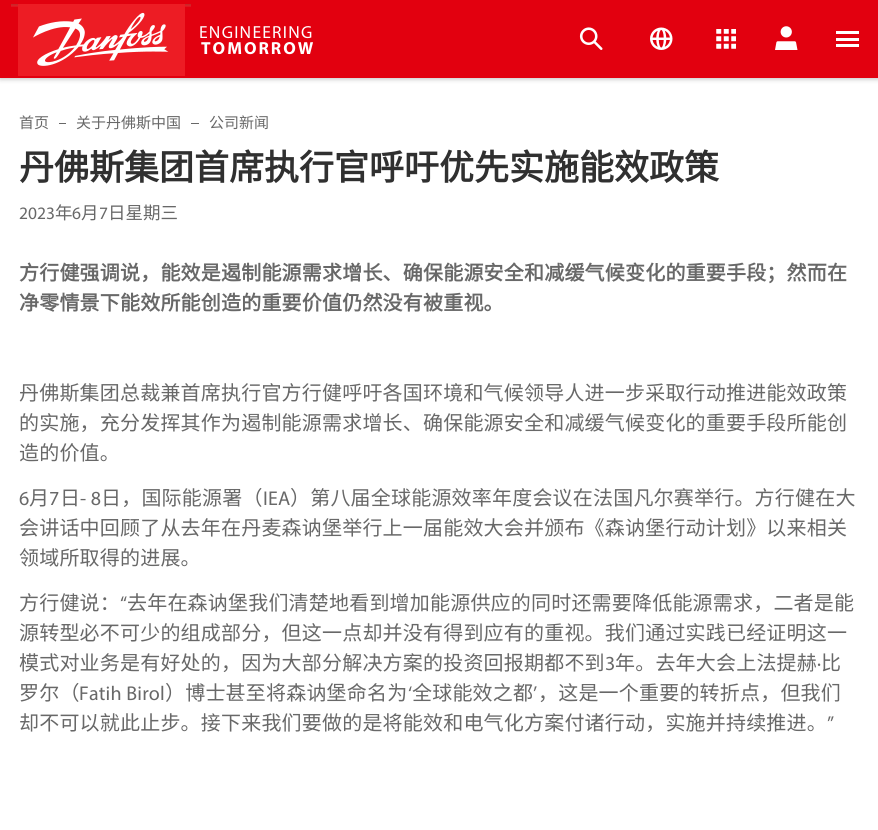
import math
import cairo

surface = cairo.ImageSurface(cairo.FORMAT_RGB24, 878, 830)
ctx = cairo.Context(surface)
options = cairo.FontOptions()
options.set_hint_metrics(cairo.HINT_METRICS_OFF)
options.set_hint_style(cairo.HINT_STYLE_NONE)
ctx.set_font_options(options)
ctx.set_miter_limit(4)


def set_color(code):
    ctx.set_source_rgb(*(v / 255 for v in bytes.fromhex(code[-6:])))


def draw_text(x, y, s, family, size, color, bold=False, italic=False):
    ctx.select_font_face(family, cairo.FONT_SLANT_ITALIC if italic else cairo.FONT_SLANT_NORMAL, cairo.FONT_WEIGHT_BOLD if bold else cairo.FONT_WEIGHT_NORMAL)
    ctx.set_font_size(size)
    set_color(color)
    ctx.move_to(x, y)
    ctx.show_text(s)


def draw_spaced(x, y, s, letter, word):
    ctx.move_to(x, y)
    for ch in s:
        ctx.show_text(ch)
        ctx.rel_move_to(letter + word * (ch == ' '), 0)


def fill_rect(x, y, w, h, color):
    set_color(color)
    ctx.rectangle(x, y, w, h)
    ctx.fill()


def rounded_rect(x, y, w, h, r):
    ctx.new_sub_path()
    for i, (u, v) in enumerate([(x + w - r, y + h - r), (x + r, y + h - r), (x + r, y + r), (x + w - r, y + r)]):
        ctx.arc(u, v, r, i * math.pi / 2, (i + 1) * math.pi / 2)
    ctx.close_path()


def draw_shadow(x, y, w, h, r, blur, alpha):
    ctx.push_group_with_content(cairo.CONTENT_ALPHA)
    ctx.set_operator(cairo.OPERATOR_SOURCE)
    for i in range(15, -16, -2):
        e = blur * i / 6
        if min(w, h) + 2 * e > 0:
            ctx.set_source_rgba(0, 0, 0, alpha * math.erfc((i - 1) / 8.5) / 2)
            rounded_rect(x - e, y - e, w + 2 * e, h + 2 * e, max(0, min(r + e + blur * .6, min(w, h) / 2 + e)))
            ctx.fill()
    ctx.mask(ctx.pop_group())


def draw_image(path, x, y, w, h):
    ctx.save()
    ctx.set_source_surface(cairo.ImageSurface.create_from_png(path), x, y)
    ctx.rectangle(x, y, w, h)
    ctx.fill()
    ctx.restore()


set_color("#ffffff")
ctx.paint()
set_color("#000000")
draw_shadow(0, 1, 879, 78, 0, 2.5, 0.25)
fill_rect(0, 0, 878, 78, "#e2000f")
draw_image("assets/img1.png", 11, 4, 180, 72)
ctx.select_font_face("Myriad")
ctx.set_font_size(17.5)
set_color("#ffffff")
draw_spaced(199, 38, "ENGINEERING", 1.25, 0)
ctx.select_font_face("Myriad", cairo.FONT_SLANT_NORMAL, cairo.FONT_WEIGHT_BOLD)
draw_spaced(201, 54, "TOMORROW", 2, 0)
draw_image("assets/img2.png", 579, 27, 24, 23)
draw_image("assets/img3.png", 650, 27, 23, 23)
draw_image("assets/img4.png", 716, 29, 20, 20)
draw_image("assets/img5.png", 775, 26, 23, 24)
fill_rect(836, 31, 23, 3, "#ffffff")
fill_rect(836, 38, 23, 3, "#ffffff")
fill_rect(836, 44, 23, 3, "#ffffff")
draw_text(19, 128, "首页", "Noto Sans CJK SC", 15, "#686868")
fill_rect(59, 123, 7, 1, "#686868")
draw_text(76, 128, "关于丹佛斯中国", "Noto Sans CJK SC", 15, "#686868")
fill_rect(191, 123, 8, 1, "#686868")
draw_text(209, 128, "公司新闻", "Noto Sans CJK SC", 15, "#686868")
draw_text(19, 180, "丹佛斯集团首席执行官呼吁优先实施能效政策", "Noto Sans CJK SC", 35, "#303030", bold=True)
draw_text(19, 219, "2023", "Myriad", 17.5, "#686868")
draw_text(55, 219, "年", "Noto Sans CJK SC", 17.5, "#686868")
draw_text(72, 219, "6", "Myriad", 17.5, "#686868")
draw_text(81, 219, "月", "Noto Sans CJK SC", 17.5, "#686868")
draw_text(99, 219, "7", "Myriad", 17.5, "#686868")
draw_text(108, 219, "日星期三", "Noto Sans CJK SC", 17.5, "#686868")
ctx.select_font_face("Noto Sans CJK SC", cairo.FONT_SLANT_NORMAL, cairo.FONT_WEIGHT_BOLD)
ctx.set_font_size(20)
draw_spaced(19, 280, "方行健强调说，能效是遏制能源需求增长、确保能源安全和减缓气候变化的重要手段；然而在", 0.2, 0)
draw_spaced(19, 310, "净零情景下能效所能创造的重要价值仍然没有被重视。", 0.2, 0)
ctx.select_font_face("Noto Sans CJK SC")
draw_spaced(19, 400, "丹佛斯集团总裁兼首席执行官方行健呼吁各国环境和气候领导人进一步采取行动推进能效政策", 0.2, 0)
draw_spaced(19, 430, "的实施，充分发挥其作为遏制能源需求增长、确保能源安全和减缓气候变化的重要手段所能创", 0.2, 0)
draw_spaced(19, 460, "造的价值。", 0.2, 0)
ctx.select_font_face("Myriad")
draw_spaced(19, 505, "6", 0.2, 0)
ctx.select_font_face("Noto Sans CJK SC")
draw_spaced(29, 505, "月", 0.2, 0)
ctx.select_font_face("Myriad")
draw_spaced(49, 505, "7", 0.2, 0)
ctx.select_font_face("Noto Sans CJK SC")
draw_spaced(60, 505, "日", 0.2, 0)
ctx.select_font_face("Myriad")
draw_spaced(80, 505, "- 8", 0.2, 0)
ctx.select_font_face("Noto Sans CJK SC")
draw_spaced(101, 505, "日，国际能源署（", 0.2, 0)
ctx.select_font_face("Myriad")
draw_spaced(263, 505, "IEA", 0.2, 0)
ctx.select_font_face("Noto Sans CJK SC")
draw_spaced(290, 505, "）第八届全球能源效率年度会议在法国凡尔赛举行。方行健在大", 0.2, 0)
draw_spaced(19, 535, "会讲话中回顾了从去年在丹麦森讷堡举行上一届能效大会并颁布《森讷堡行动计划》以来相关", 0.2, 0)
draw_spaced(19, 565, "领域所取得的进展。", 0.2, 0)
draw_spaced(19, 610, "方行健说：", 0.2, 0)
ctx.select_font_face("Myriad")
draw_spaced(120, 610, "“", 0.2, 0)
ctx.select_font_face("Noto Sans CJK SC")
draw_spaced(127, 610, "去年在森讷堡我们清楚地看到增加能源供应的同时还需要降低能源需求，二者是能", 0.2, 0)
draw_spaced(19, 640, "源转型必不可少的组成部分，但这一点却并没有得到应有的重视。我们通过实践已经证明这一", 0.2, 0)
draw_spaced(19, 670, "模式对业务是有好处的，因为大部分解决方案的投资回报期都不到", 0.2, 0)
ctx.select_font_face("Myriad")
draw_spaced(605, 670, "3", 0.2, 0)
ctx.select_font_face("Noto Sans CJK SC")
draw_spaced(615, 670, "年。去年大会上法提赫", 0.2, 0)
ctx.select_font_face("Myriad")
draw_spaced(817, 670, "·", 0.2, 0)
ctx.select_font_face("Noto Sans CJK SC")
draw_spaced(821, 670, "比", 0.2, 0)
draw_spaced(19, 700, "罗尔（", 0.2, 0)
ctx.select_font_face("Myriad")
draw_spaced(79, 700, "Fatih Birol", 0.2, 0)
ctx.select_font_face("Noto Sans CJK SC")
draw_spaced(165, 700, "）博士甚至将森讷堡命名为", 0.2, 0)
ctx.select_font_face("Myriad")
draw_spaced(408, 700, "‘", 0.2, 0)
ctx.select_font_face("Noto Sans CJK SC")
draw_spaced(412, 700, "全球能效之都", 0.2, 0)
ctx.select_font_face("Myriad")
draw_spaced(533, 700, "’", 0.2, 0)
ctx.select_font_face("Noto Sans CJK SC")
draw_spaced(538, 700, "，这是一个重要的转折点，但我们", 0.2, 0)
draw_spaced(19, 730, "却不可以就此止步。接下来我们要做的是将能效和电气化方案付诸行动，实施并持续推进。", 0.2, 0)
ctx.select_font_face("Myriad")
draw_spaced(827, 730, "”", 0.2, 0)
surface.write_to_png("output.png")
